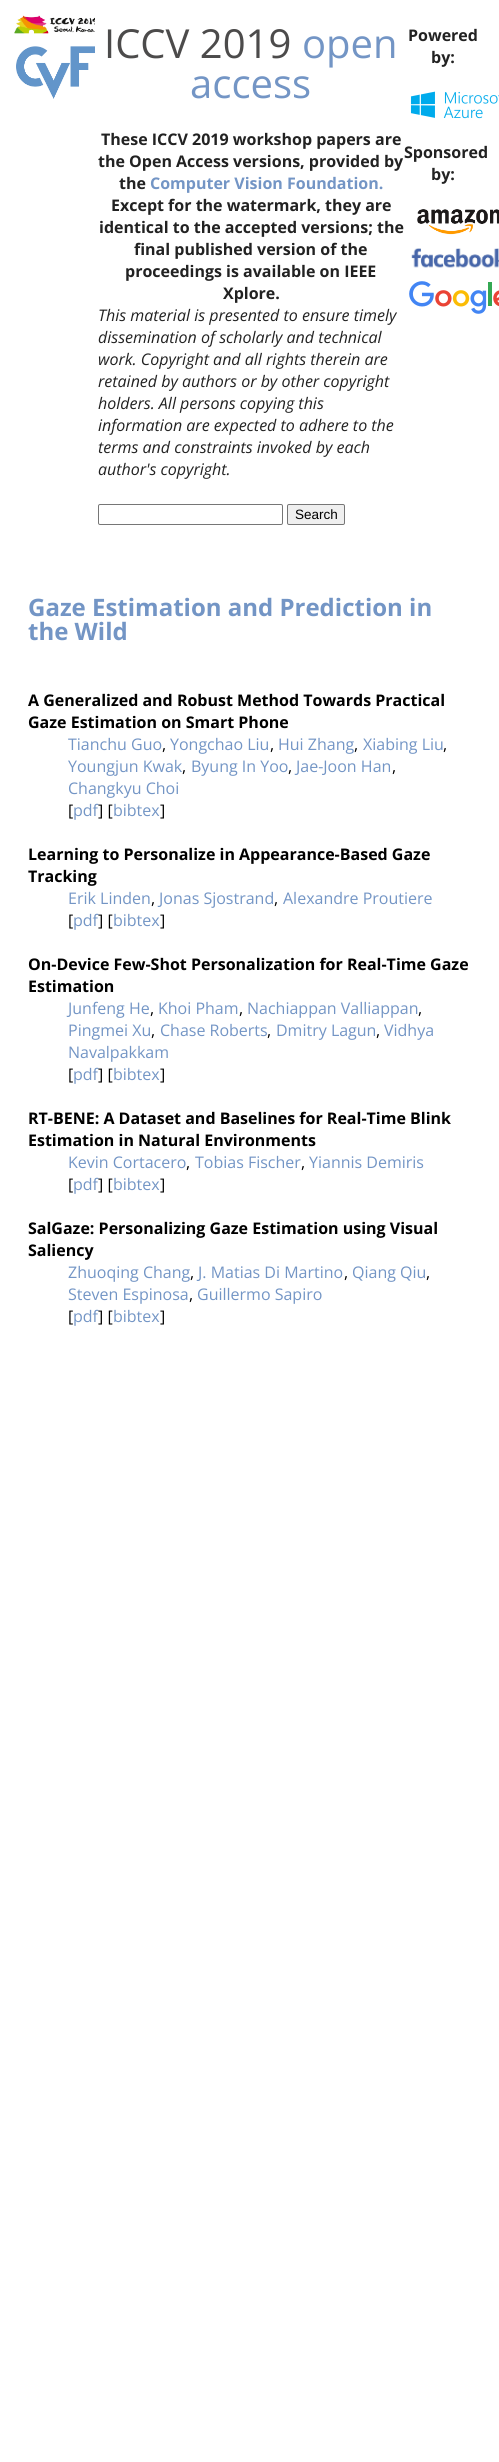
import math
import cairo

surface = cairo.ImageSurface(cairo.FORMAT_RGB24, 499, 2462)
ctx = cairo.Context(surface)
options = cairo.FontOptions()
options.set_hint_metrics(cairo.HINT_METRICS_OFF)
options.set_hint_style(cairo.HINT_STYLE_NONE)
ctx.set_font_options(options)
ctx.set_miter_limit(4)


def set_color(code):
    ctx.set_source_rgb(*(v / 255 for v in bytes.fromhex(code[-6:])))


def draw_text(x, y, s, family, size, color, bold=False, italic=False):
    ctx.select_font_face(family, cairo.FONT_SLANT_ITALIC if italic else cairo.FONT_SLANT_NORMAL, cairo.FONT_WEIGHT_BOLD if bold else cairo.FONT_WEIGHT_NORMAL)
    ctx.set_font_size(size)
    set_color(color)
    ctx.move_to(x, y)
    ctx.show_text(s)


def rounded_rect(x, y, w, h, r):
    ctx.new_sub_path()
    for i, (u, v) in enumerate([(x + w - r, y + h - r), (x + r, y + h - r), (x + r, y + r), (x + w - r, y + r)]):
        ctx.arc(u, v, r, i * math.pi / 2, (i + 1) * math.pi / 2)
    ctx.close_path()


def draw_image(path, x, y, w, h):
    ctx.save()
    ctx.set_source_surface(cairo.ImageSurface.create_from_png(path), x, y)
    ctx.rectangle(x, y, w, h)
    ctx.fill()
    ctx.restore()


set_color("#ffffff")
ctx.paint()
draw_image("assets/img1.png", 14, 15, 81, 19)
draw_image("assets/img2.png", 16, 46, 79, 53)
draw_text(104, 58, "ICCV 2019", "Open Sans", 40, "#4c4b4b")
draw_text(302, 58, "open", "Open Sans", 40, "#7395c5")
draw_text(190, 98, "access", "Open Sans", 40, "#7395c5")
draw_text(101, 145, "These ICCV 2019 workshop papers are", "Open Sans", 16, "#222222", bold=True)
draw_text(98, 167, "the Open Access versions, provided by", "Open Sans", 16, "#222222", bold=True)
draw_text(119, 189, "the", "Open Sans", 16, "#222222", bold=True)
draw_text(150, 189, "Computer Vision Foundation.", "Open Sans", 16, "#7395c5", bold=True)
draw_text(111, 211, "Except for the watermark, they are", "Open Sans", 16, "#222222", bold=True)
draw_text(99, 233, "identical to the accepted versions; the", "Open Sans", 16, "#222222", bold=True)
draw_text(134, 255, "final published version of the", "Open Sans", 16, "#222222", bold=True)
draw_text(125, 277, "proceedings is available on IEEE", "Open Sans", 16, "#222222", bold=True)
draw_text(223, 299, "Xplore.", "Open Sans", 16, "#222222", bold=True)
draw_text(98, 321, "This material is presented to ensure timely", "Open Sans", 16, "#222222", italic=True)
draw_text(98, 343, "dissemination of scholarly and technical", "Open Sans", 16, "#222222", italic=True)
draw_text(98, 365, "work. Copyright and all rights therein are", "Open Sans", 16, "#222222", italic=True)
draw_text(98, 387, "retained by authors or by other copyright", "Open Sans", 16, "#222222", italic=True)
draw_text(98, 409, "holders. All persons copying this", "Open Sans", 16, "#222222", italic=True)
draw_text(98, 431, "information are expected to adhere to the", "Open Sans", 16, "#222222", italic=True)
draw_text(98, 453, "terms and constraints invoked by each", "Open Sans", 16, "#222222", italic=True)
draw_text(98, 475, "author's copyright.", "Open Sans", 16, "#222222", italic=True)
rounded_rect(98.5, 504.5, 184, 20, 1.5)
set_color("#767676")
ctx.set_line_width(1)
ctx.stroke()
set_color("#efefef")
rounded_rect(287.5, 504.5, 57, 20, 1.5)
ctx.fill_preserve()
set_color("#767676")
ctx.stroke()
draw_text(295, 519, "Search", "Liberation Sans", 13.5, "#000000")
draw_text(408, 41, "Powered", "Open Sans", 16, "#222222", bold=True)
draw_text(431, 63, "by:", "Open Sans", 16, "#222222", bold=True)
draw_image("assets/img3.png", 410, 91, 89, 28)
draw_text(404, 158, "Sponsored", "Open Sans", 16, "#222222", bold=True)
draw_text(431, 180, "by:", "Open Sans", 16, "#222222", bold=True)
draw_image("assets/img4.png", 417, 209, 82, 26)
draw_image("assets/img5.png", 411, 248, 88, 20)
draw_image("assets/img6.png", 409, 281, 90, 33)
draw_text(28, 616, "Gaze Estimation and Prediction in", "Open Sans", 24, "#7395c5", bold=True)
draw_text(28, 640, "the Wild", "Open Sans", 24, "#7395c5", bold=True)
draw_text(28, 706, "A Generalized and Robust Method Towards Practical", "Open Sans", 16, "#000000", bold=True)
draw_text(28, 728, "Gaze Estimation on Smart Phone", "Open Sans", 16, "#000000", bold=True)
draw_text(68, 750, "Tianchu Guo", "Open Sans", 16, "#7395c5")
draw_text(162, 750, ",", "Open Sans", 16, "#000000")
draw_text(170, 750, "Yongchao Liu", "Open Sans", 16, "#7395c5")
draw_text(270, 750, ",", "Open Sans", 16, "#000000")
draw_text(278, 750, "Hui Zhang", "Open Sans", 16, "#7395c5")
draw_text(354, 750, ",", "Open Sans", 16, "#000000")
draw_text(363, 750, "Xiabing Liu", "Open Sans", 16, "#7395c5")
draw_text(443, 750, ",", "Open Sans", 16, "#000000")
draw_text(68, 772, "Youngjun Kwak", "Open Sans", 16, "#7395c5")
draw_text(182, 772, ",", "Open Sans", 16, "#000000")
draw_text(191, 772, "Byung In Yoo", "Open Sans", 16, "#7395c5")
draw_text(288, 772, ",", "Open Sans", 16, "#000000")
draw_text(296, 772, "Jae-Joon Han", "Open Sans", 16, "#7395c5")
draw_text(392, 772, ",", "Open Sans", 16, "#000000")
draw_text(68, 794, "Changkyu Choi", "Open Sans", 16, "#7395c5")
draw_text(68, 816, "[", "Open Sans", 16, "#000000")
draw_text(73, 816, "pdf", "Open Sans", 16, "#7395c5")
draw_text(98, 816, "] [", "Open Sans", 16, "#000000")
draw_text(113, 816, "bibtex", "Open Sans", 16, "#7395c5")
draw_text(160, 816, "]", "Open Sans", 16, "#000000")
draw_text(28, 860, "Learning to Personalize in Appearance-Based Gaze", "Open Sans", 16, "#000000", bold=True)
draw_text(28, 882, "Tracking", "Open Sans", 16, "#000000", bold=True)
draw_text(68, 904, "Erik Linden", "Open Sans", 16, "#7395c5")
draw_text(151, 904, ",", "Open Sans", 16, "#000000")
draw_text(159, 904, "Jonas Sjostrand", "Open Sans", 16, "#7395c5")
draw_text(274, 904, ",", "Open Sans", 16, "#000000")
draw_text(283, 904, "Alexandre Proutiere", "Open Sans", 16, "#7395c5")
draw_text(68, 926, "[", "Open Sans", 16, "#000000")
draw_text(73, 926, "pdf", "Open Sans", 16, "#7395c5")
draw_text(98, 926, "] [", "Open Sans", 16, "#000000")
draw_text(113, 926, "bibtex", "Open Sans", 16, "#7395c5")
draw_text(160, 926, "]", "Open Sans", 16, "#000000")
draw_text(28, 970, "On-Device Few-Shot Personalization for Real-Time Gaze", "Open Sans", 16, "#000000", bold=True)
draw_text(28, 992, "Estimation", "Open Sans", 16, "#000000", bold=True)
draw_text(68, 1014, "Junfeng He", "Open Sans", 16, "#7395c5")
draw_text(150, 1014, ",", "Open Sans", 16, "#000000")
draw_text(158, 1014, "Khoi Pham", "Open Sans", 16, "#7395c5")
draw_text(239, 1014, ",", "Open Sans", 16, "#000000")
draw_text(247, 1014, "Nachiappan Valliappan", "Open Sans", 16, "#7395c5")
draw_text(418, 1014, ",", "Open Sans", 16, "#000000")
draw_text(68, 1036, "Pingmei Xu", "Open Sans", 16, "#7395c5")
draw_text(151, 1036, ",", "Open Sans", 16, "#000000")
draw_text(160, 1036, "Chase Roberts", "Open Sans", 16, "#7395c5")
draw_text(267, 1036, ",", "Open Sans", 16, "#000000")
draw_text(276, 1036, "Dmitry Lagun", "Open Sans", 16, "#7395c5")
draw_text(376, 1036, ",", "Open Sans", 16, "#000000")
draw_text(384, 1036, "Vidhya", "Open Sans", 16, "#7395c5")
draw_text(68, 1058, "Navalpakkam", "Open Sans", 16, "#7395c5")
draw_text(68, 1080, "[", "Open Sans", 16, "#000000")
draw_text(73, 1080, "pdf", "Open Sans", 16, "#7395c5")
draw_text(98, 1080, "] [", "Open Sans", 16, "#000000")
draw_text(113, 1080, "bibtex", "Open Sans", 16, "#7395c5")
draw_text(160, 1080, "]", "Open Sans", 16, "#000000")
draw_text(28, 1124, "RT-BENE: A Dataset and Baselines for Real-Time Blink", "Open Sans", 16, "#000000", bold=True)
draw_text(28, 1146, "Estimation in Natural Environments", "Open Sans", 16, "#000000", bold=True)
draw_text(68, 1168, "Kevin Cortacero", "Open Sans", 16, "#7395c5")
draw_text(186, 1168, ",", "Open Sans", 16, "#000000")
draw_text(195, 1168, "Tobias Fischer", "Open Sans", 16, "#7395c5")
draw_text(301, 1168, ",", "Open Sans", 16, "#000000")
draw_text(309, 1168, "Yiannis Demiris", "Open Sans", 16, "#7395c5")
draw_text(68, 1190, "[", "Open Sans", 16, "#000000")
draw_text(73, 1190, "pdf", "Open Sans", 16, "#7395c5")
draw_text(98, 1190, "] [", "Open Sans", 16, "#000000")
draw_text(113, 1190, "bibtex", "Open Sans", 16, "#7395c5")
draw_text(160, 1190, "]", "Open Sans", 16, "#000000")
draw_text(28, 1234, "SalGaze: Personalizing Gaze Estimation using Visual", "Open Sans", 16, "#000000", bold=True)
draw_text(28, 1256, "Saliency", "Open Sans", 16, "#000000", bold=True)
draw_text(68, 1278, "Zhuoqing Chang", "Open Sans", 16, "#7395c5")
draw_text(190, 1278, ",", "Open Sans", 16, "#000000")
draw_text(198, 1278, "J. Matias Di Martino", "Open Sans", 16, "#7395c5")
draw_text(344, 1278, ",", "Open Sans", 16, "#000000")
draw_text(352, 1278, "Qiang Qiu", "Open Sans", 16, "#7395c5")
draw_text(426, 1278, ",", "Open Sans", 16, "#000000")
draw_text(68, 1300, "Steven Espinosa", "Open Sans", 16, "#7395c5")
draw_text(189, 1300, ",", "Open Sans", 16, "#000000")
draw_text(197, 1300, "Guillermo Sapiro", "Open Sans", 16, "#7395c5")
draw_text(68, 1322, "[", "Open Sans", 16, "#000000")
draw_text(73, 1322, "pdf", "Open Sans", 16, "#7395c5")
draw_text(98, 1322, "] [", "Open Sans", 16, "#000000")
draw_text(113, 1322, "bibtex", "Open Sans", 16, "#7395c5")
draw_text(160, 1322, "]", "Open Sans", 16, "#000000")
surface.write_to_png("output.png")
